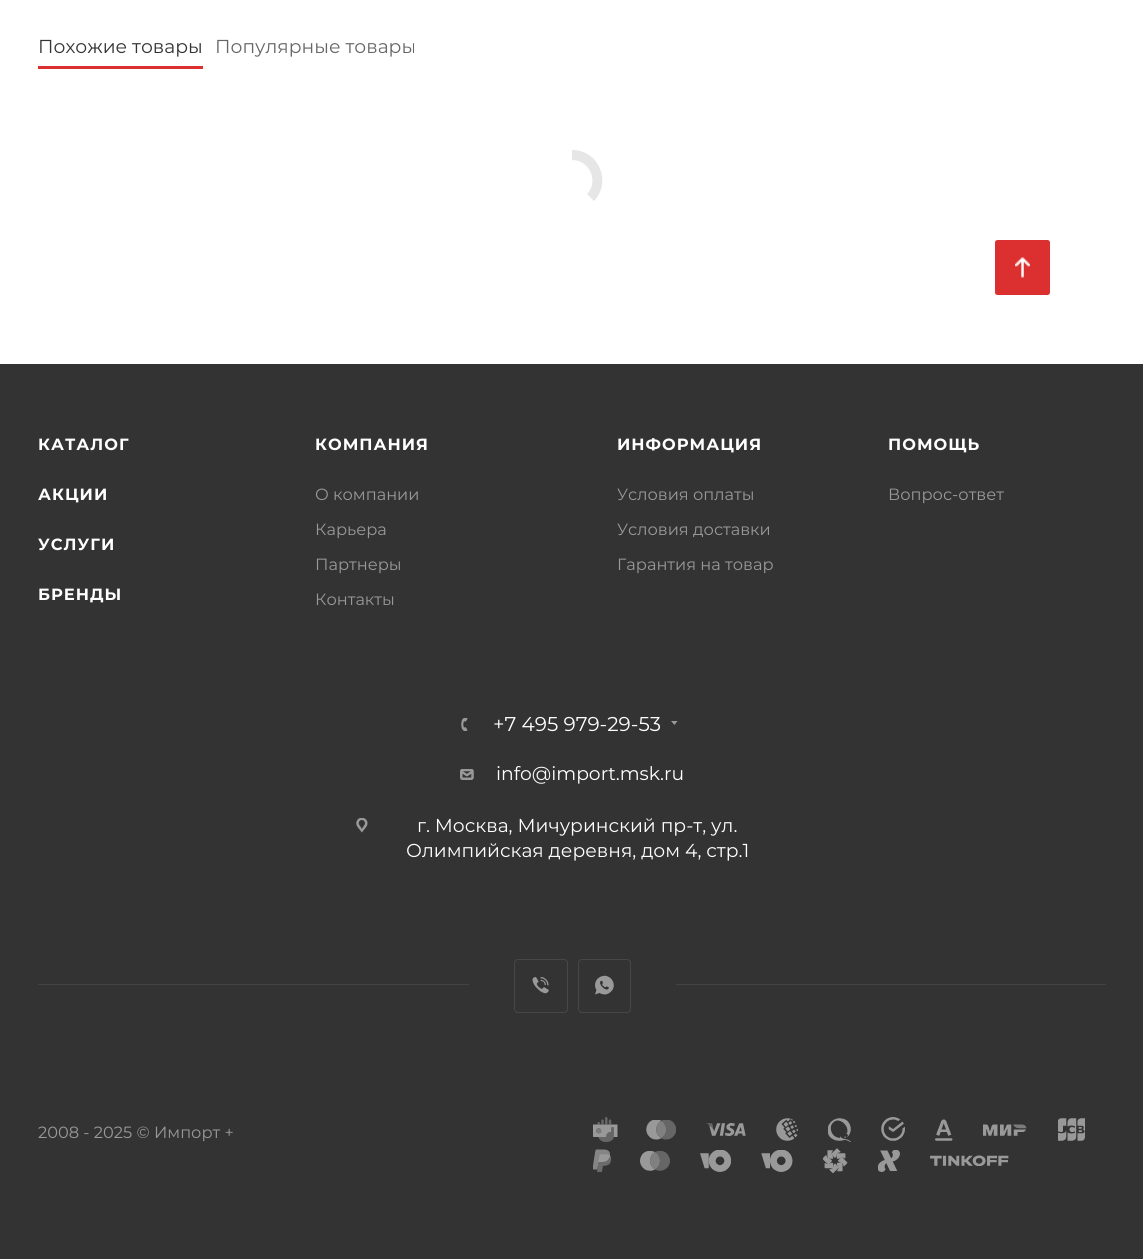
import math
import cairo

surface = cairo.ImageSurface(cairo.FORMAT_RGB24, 1143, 1259)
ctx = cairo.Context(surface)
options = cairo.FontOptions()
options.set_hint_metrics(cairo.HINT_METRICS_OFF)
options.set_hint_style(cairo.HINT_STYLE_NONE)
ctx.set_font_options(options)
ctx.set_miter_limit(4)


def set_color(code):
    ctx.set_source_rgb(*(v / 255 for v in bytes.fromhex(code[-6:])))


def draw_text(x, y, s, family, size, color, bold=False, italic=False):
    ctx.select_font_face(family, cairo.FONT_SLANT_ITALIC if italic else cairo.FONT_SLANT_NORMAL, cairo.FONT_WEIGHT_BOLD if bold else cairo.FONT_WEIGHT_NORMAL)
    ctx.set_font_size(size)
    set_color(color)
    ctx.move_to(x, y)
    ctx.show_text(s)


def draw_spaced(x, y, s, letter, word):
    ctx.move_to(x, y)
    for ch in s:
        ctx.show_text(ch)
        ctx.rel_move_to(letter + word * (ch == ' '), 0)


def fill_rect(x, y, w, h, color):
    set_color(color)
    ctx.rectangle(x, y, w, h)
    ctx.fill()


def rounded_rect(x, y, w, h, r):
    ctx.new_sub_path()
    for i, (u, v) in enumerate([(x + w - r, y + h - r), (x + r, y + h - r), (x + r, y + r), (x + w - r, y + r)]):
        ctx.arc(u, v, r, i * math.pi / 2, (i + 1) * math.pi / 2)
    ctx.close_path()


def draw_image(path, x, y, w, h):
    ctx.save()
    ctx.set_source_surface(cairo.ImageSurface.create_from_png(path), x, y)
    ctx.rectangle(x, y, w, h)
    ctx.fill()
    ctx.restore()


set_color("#ffffff")
ctx.paint()
draw_text(38, 53, "Похожие товары", "Montserrat", 18.75, "#333333")
fill_rect(38, 66, 165, 3, "#dc2f2f")
draw_text(215, 53, "Популярные товары", "Montserrat", 18.75, "#666666")
set_color("#e6e6e6")
ctx.new_path()
ctx.move_to(572, 150)
ctx.curve_to(599, 150, 612, 182, 594, 201)
ctx.line_to(587, 194)
ctx.curve_to(599, 182, 590, 160, 572, 160)
ctx.close_path()
ctx.fill()
set_color("#dc2f2f")
rounded_rect(995, 240, 55, 55, 2.5)
ctx.fill()
draw_image("assets/img1.png", 1015, 257, 15, 21)
fill_rect(0, 364, 1143, 895, "#333333")
ctx.select_font_face("Montserrat", cairo.FONT_SLANT_NORMAL, cairo.FONT_WEIGHT_BOLD)
ctx.set_font_size(16.25)
set_color("#ffffff")
draw_spaced(38, 450, "КАТАЛОГ", 1, 0)
draw_spaced(38, 500, "АКЦИИ", 1, 0)
draw_spaced(38, 550, "УСЛУГИ", 1, 0)
draw_spaced(38, 600, "БРЕНДЫ", 1, 0)
draw_spaced(315, 450, "КОМПАНИЯ", 1, 0)
draw_text(315, 500, "О компании", "Montserrat", 16.25, "#999999")
draw_text(315, 535, "Карьера", "Montserrat", 16.25, "#999999")
draw_text(315, 570, "Партнеры", "Montserrat", 16.25, "#999999")
draw_text(315, 605, "Контакты", "Montserrat", 16.25, "#999999")
ctx.select_font_face("Montserrat", cairo.FONT_SLANT_NORMAL, cairo.FONT_WEIGHT_BOLD)
set_color("#ffffff")
draw_spaced(617, 450, "ИНФОРМАЦИЯ", 1, 0)
draw_text(617, 500, "Условия оплаты", "Montserrat", 16.25, "#999999")
draw_text(617, 535, "Условия доставки", "Montserrat", 16.25, "#999999")
draw_text(617, 570, "Гарантия на товар", "Montserrat", 16.25, "#999999")
ctx.select_font_face("Montserrat", cairo.FONT_SLANT_NORMAL, cairo.FONT_WEIGHT_BOLD)
set_color("#ffffff")
draw_spaced(888, 450, "ПОМОЩЬ", 1, 0)
draw_text(888, 500, "Вопрос-ответ", "Montserrat", 16.25, "#999999")
draw_image("assets/img2.png", 461, 718, 7, 13)
draw_text(493, 731, "+7 495 979-29-53", "Montserrat", 20, "#ffffff")
set_color("#999999")
ctx.set_fill_rule(cairo.FILL_RULE_EVEN_ODD)
ctx.new_path()
ctx.move_to(671, 721)
ctx.line_to(677.5, 721)
ctx.line_to(674.5, 725)
ctx.close_path()
ctx.fill()
draw_image("assets/img3.png", 460, 769, 14, 11)
draw_text(496, 780, "info@import.msk.ru", "Montserrat", 18.75, "#ffffff")
draw_image("assets/img4.png", 356, 818, 12, 15)
draw_text(417, 832, "г. Москва, Мичуринский пр-т, ул.", "Montserrat", 18.75, "#ffffff")
draw_text(406, 857, "Олимпийская деревня, дом 4, стр.1", "Montserrat", 18.75, "#ffffff")
fill_rect(38, 984, 1068, 1, "#434343")
fill_rect(469, 984, 207, 1, "#333333")
draw_image("assets/img5.png", 532, 977, 17, 17)
rounded_rect(514.5, 959.5, 53, 53, 3.5)
set_color("#474747")
ctx.set_line_width(1)
ctx.stroke()
draw_image("assets/img6.png", 595, 975, 19, 20)
rounded_rect(578.5, 959.5, 52, 53, 3.5)
ctx.stroke()
draw_text(38, 1138, "2008 - 2025 © Импорт +", "Montserrat", 16.25, "#999999")
draw_image("assets/img7.png", 593, 1117, 25, 25)
draw_image("assets/img8.png", 646, 1120, 30, 20)
draw_image("assets/img9.png", 706, 1123, 40, 13)
draw_image("assets/img10.png", 776, 1118, 22, 23)
draw_image("assets/img11.png", 828, 1118, 23, 24)
draw_image("assets/img12.png", 881, 1117, 24, 24)
draw_image("assets/img13.png", 935, 1119, 18, 22)
draw_image("assets/img14.png", 983, 1124, 44, 12)
draw_image("assets/img15.png", 1058, 1118, 27, 23)
draw_image("assets/img16.png", 593, 1149, 18, 23)
draw_image("assets/img17.png", 640, 1151, 30, 20)
draw_image("assets/img18.png", 700, 1150, 31, 22)
draw_image("assets/img19.png", 761, 1150, 32, 22)
draw_image("assets/img20.png", 823, 1148, 25, 25)
draw_image("assets/img21.png", 878, 1150, 22, 22)
draw_image("assets/img22.png", 930, 1155, 79, 11)
surface.write_to_png("output.png")
